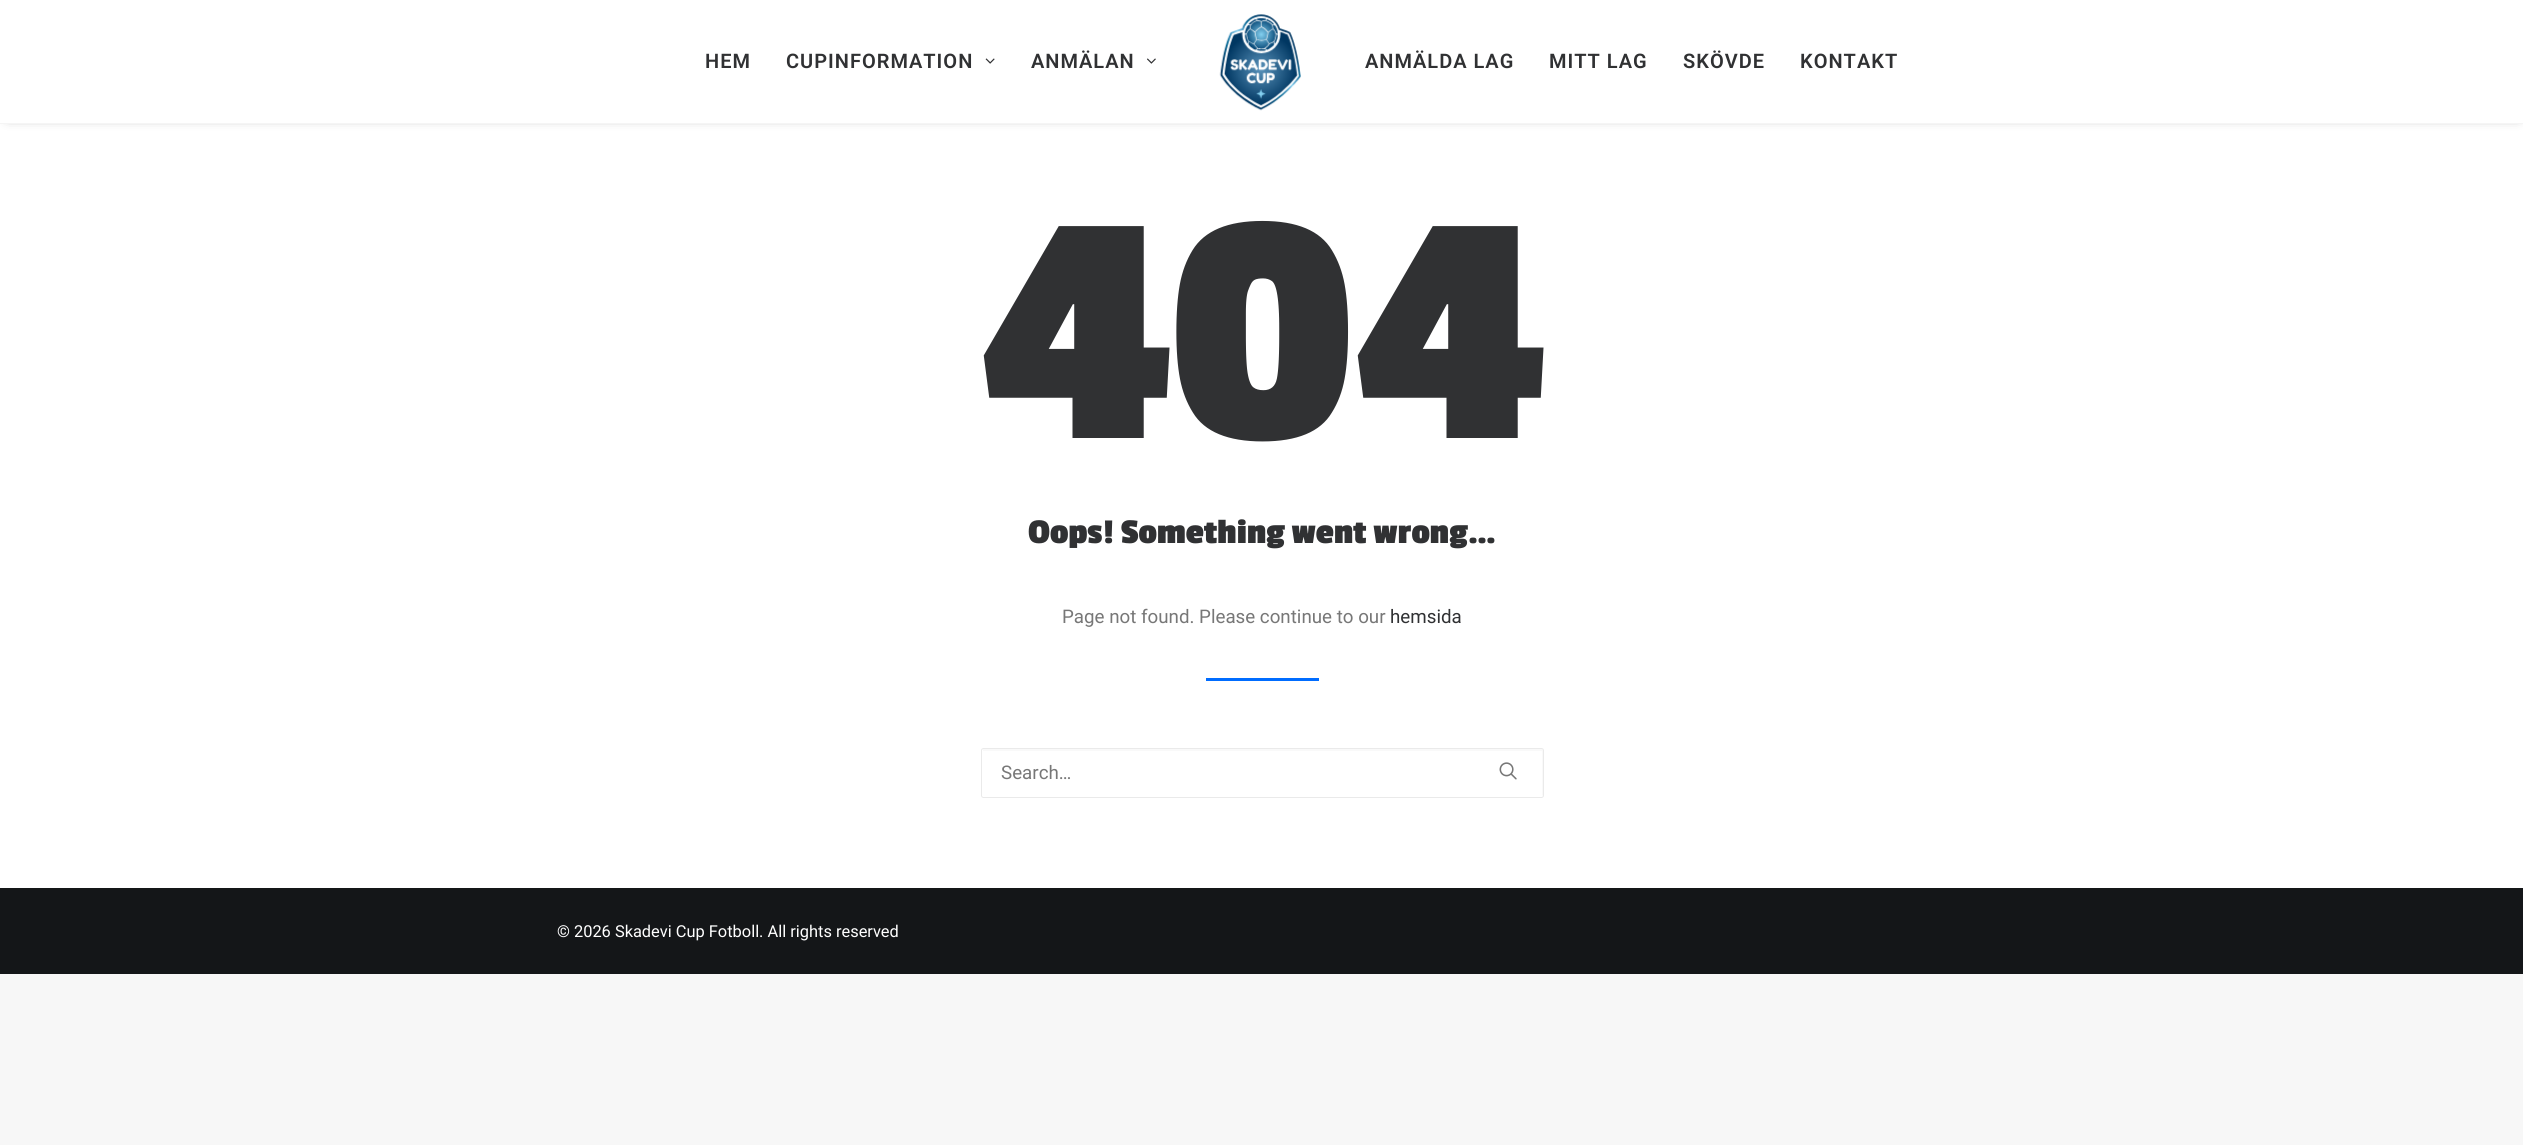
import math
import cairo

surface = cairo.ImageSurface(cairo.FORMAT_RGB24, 2523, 1145)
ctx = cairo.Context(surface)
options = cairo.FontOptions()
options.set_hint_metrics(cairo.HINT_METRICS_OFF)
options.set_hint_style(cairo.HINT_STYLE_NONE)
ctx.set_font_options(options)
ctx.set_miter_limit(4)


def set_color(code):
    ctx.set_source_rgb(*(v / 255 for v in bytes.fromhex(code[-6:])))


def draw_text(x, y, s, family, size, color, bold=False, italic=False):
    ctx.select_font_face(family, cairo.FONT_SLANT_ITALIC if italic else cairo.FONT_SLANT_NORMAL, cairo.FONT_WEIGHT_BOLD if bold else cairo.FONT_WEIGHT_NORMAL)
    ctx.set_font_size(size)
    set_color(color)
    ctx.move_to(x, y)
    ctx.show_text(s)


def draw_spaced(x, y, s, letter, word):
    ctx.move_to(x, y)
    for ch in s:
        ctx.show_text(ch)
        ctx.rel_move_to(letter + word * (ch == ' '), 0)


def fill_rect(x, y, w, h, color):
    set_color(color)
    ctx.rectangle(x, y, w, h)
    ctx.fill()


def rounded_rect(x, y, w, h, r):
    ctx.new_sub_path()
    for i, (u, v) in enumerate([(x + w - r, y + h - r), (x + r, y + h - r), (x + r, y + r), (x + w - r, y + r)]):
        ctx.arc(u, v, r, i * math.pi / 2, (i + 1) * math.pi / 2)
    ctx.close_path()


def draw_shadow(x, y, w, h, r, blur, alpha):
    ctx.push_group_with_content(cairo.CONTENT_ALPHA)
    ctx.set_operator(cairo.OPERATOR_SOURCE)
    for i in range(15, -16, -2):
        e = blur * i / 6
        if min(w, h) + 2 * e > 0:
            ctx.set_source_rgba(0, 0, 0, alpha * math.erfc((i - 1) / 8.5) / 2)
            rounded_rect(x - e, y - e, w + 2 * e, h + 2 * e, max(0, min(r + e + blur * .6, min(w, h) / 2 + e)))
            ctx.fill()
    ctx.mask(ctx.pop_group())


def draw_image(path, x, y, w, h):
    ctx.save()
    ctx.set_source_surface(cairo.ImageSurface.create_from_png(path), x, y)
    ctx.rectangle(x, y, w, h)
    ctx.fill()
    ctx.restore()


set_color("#f7f7f7")
ctx.paint()
fill_rect(0, 124, 2523, 764, "#ffffff")
set_color("#000000")
draw_shadow(8, 18, 2510, 98, 0, 6, 0.6)
fill_rect(0, 0, 2523, 123, "#ffffff")
fill_rect(0, 123, 2523, 1, "#f5f5f5")
ctx.select_font_face("Roboto SemiBold")
ctx.set_font_size(20)
set_color("#303133")
draw_spaced(705, 68, "HEM", 1, 0)
draw_spaced(786, 68, "CUPINFORMATION", 1, 0)
draw_image("assets/img1.png", 985, 58, 10, 6)
draw_spaced(1031, 68, "ANMÄLAN", 1, 0)
draw_image("assets/img2.png", 1147, 58, 9, 6)
draw_image("assets/img3.png", 1219, 14, 82, 97)
draw_spaced(1365, 68, "ANMÄLDA LAG", 1, 0)
draw_spaced(1549, 68, "MITT LAG", 1, 0)
draw_spaced(1683, 68, "SKÖVDE", 1, 0)
draw_spaced(1800, 68, "KONTAKT", 1, 0)
draw_text(981, 438, "404", "Passion One", 344, "#303133", bold=True)
draw_text(1028, 543, "Oops! Something went wrong…", "Passion One", 36.25, "#303133", bold=True)
draw_text(1062, 623, "Page not found. Please continue to our", "Roboto", 18.75, "#777777")
draw_text(1390, 623, "hemsida", "Roboto", 18.75, "#303133")
fill_rect(1206, 678, 113, 3, "#006cff")
set_color("#f9f9f9")
ctx.new_path()
ctx.move_to(984, 751)
ctx.line_to(1541, 751)
ctx.curve_to(1542, 751, 1542, 752, 1542, 752)
ctx.line_to(1542, 796)
ctx.line_to(1543, 795)
ctx.line_to(1543, 758)
ctx.curve_to(1543, 756, 1544, 749, 1542, 749)
ctx.line_to(983, 749)
ctx.line_to(983, 751)
ctx.close_path()
ctx.fill()
rounded_rect(981.5, 748.5, 562, 49, 2)
set_color("#eaeaea")
ctx.set_line_width(1)
ctx.stroke()
draw_text(1001, 779, "Search…", "Roboto", 18.75, "#777777")
draw_image("assets/img4.png", 1499, 762, 18, 18)
fill_rect(0, 888, 2523, 86, "#141618")
draw_text(557, 937, "© 2026 Skadevi Cup Fotboll. All rights reserved", "Roboto", 16.4, "#ffffff")
surface.write_to_png("output.png")
